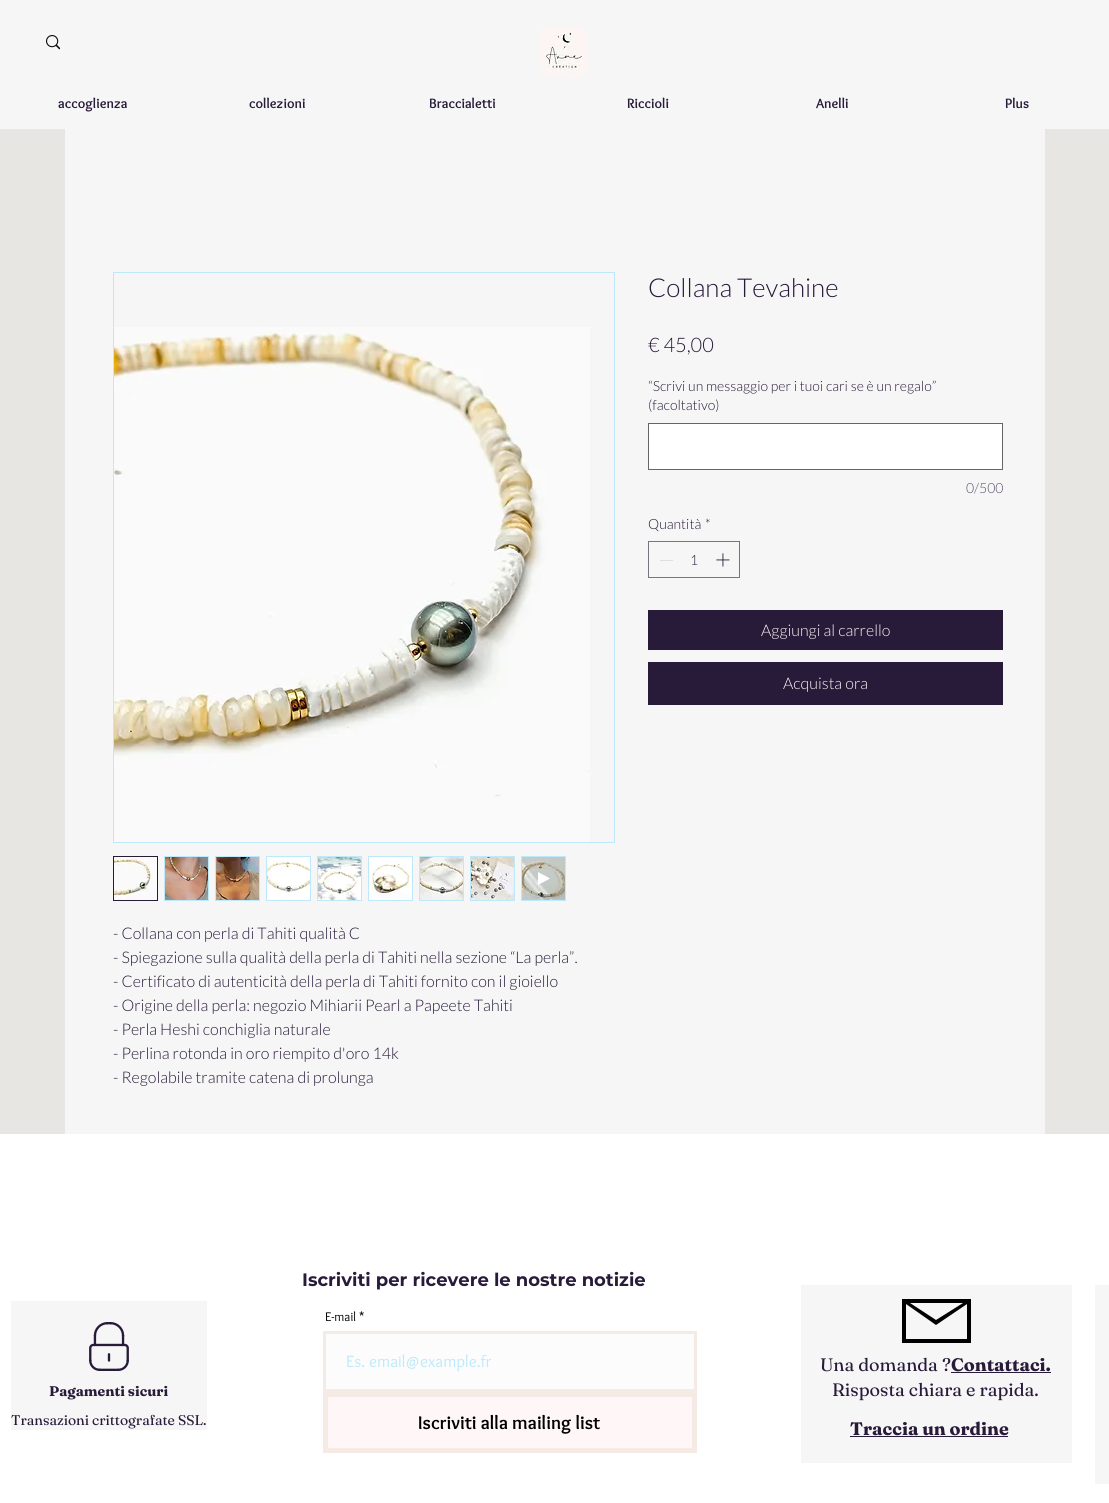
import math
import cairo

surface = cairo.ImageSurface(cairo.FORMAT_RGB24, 1109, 1503)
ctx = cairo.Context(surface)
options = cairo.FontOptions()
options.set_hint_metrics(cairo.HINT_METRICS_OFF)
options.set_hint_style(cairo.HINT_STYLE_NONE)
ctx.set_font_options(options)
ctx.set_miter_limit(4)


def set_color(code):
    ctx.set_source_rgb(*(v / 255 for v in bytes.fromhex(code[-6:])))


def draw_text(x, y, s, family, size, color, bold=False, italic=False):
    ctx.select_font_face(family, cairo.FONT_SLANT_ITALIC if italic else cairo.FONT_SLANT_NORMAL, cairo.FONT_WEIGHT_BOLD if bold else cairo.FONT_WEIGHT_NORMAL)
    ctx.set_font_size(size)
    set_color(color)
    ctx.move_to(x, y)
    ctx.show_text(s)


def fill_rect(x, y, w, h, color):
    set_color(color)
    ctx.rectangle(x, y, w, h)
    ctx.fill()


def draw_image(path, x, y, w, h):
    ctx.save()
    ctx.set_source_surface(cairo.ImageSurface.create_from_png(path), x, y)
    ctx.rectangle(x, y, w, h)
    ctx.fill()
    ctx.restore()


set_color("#e8e6e3")
ctx.paint()
fill_rect(0, 0, 1109, 129, "#f6f6f6")
draw_image("assets/img1.png", 46, 35, 14, 15)
draw_image("assets/img2.png", 539, 27, 49, 50)
draw_text(58, 108, "accoglienza", "Overlock", 14, "#281a39", bold=True)
draw_text(249, 108, "collezioni", "Overlock", 14, "#281a39", bold=True)
draw_text(429, 108, "Braccialetti", "Overlock", 14, "#281a39", bold=True)
draw_text(627, 108, "Riccioli", "Overlock", 14, "#281a39", bold=True)
draw_text(816, 108, "Anelli", "Overlock", 14, "#281a39", bold=True)
draw_text(1005, 108, "Plus", "Overlock", 14, "#281a39", bold=True)
fill_rect(65, 129, 980, 1005, "#f6f6f6")
draw_text(648, 297, "Collana Tevahine", "Lato Light", 26, "#281a39")
draw_text(648, 352, "€ 45,00", "Lato Light", 20, "#281a39")
draw_text(648, 391, "“Scrivi un messaggio per i tuoi cari se è un regalo”", "Lato Light", 14, "#281a39")
draw_text(648, 410, "(facoltativo)", "Lato Light", 14, "#281a39")
set_color("#ffffff")
ctx.rectangle(648.5, 423.5, 354, 46)
ctx.fill_preserve()
set_color("#666666")
ctx.set_line_width(1)
ctx.stroke()
draw_text(966, 493, "0/500", "Lato Light", 14, "#5c5168")
draw_text(648, 529, "Quantità", "Lato Light", 14, "#281a39")
draw_text(705, 529, "*", "Lato Light", 14, "#281a39")
ctx.rectangle(648.5, 541.5, 91, 36)
set_color("#7a7285")
ctx.stroke()
fill_rect(660, 560, 13, 1, "#dfdfdf")
draw_text(690, 565, "1", "Lato Light", 14, "#281a39")
draw_image("assets/img3.png", 716, 553, 14, 14)
fill_rect(648, 610, 355, 40, "#281a39")
draw_text(761, 636, "Aggiungi al carrello", "Lato Light", 16, "#f6f6f6")
fill_rect(648, 662, 355, 43, "#281a39")
draw_text(783, 689, "Acquista ora", "Lato Light", 16, "#f6f6f6")
ctx.rectangle(113.5, 272.5, 501, 570)
set_color("#bde9fb")
ctx.stroke()
draw_image("assets/img4.png", 114, 327, 476, 515)
ctx.rectangle(113.5, 856.5, 44, 44)
set_color("#281a39")
ctx.stroke()
draw_image("assets/img5.png", 114, 857, 43, 43)
fill_rect(164, 856, 45, 45, "#bde9fb")
draw_image("assets/img6.png", 165, 857, 43, 43)
fill_rect(215, 856, 45, 45, "#bde9fb")
draw_image("assets/img7.png", 216, 857, 43, 43)
fill_rect(266, 856, 45, 45, "#bde9fb")
draw_image("assets/img8.png", 267, 857, 43, 43)
fill_rect(317, 856, 45, 45, "#bde9fb")
draw_image("assets/img9.png", 318, 857, 43, 43)
fill_rect(368, 856, 45, 45, "#bde9fb")
draw_image("assets/img10.png", 369, 857, 43, 43)
fill_rect(419, 856, 45, 45, "#bde9fb")
draw_image("assets/img11.png", 420, 857, 43, 43)
fill_rect(470, 856, 45, 45, "#bde9fb")
draw_image("assets/img12.png", 471, 857, 43, 43)
fill_rect(521, 856, 45, 45, "#bde9fb")
draw_image("assets/img13.png", 522, 857, 43, 43)
set_color("#ffffff")
ctx.new_path()
ctx.move_to(538, 872)
ctx.line_to(538, 885)
ctx.line_to(550, 878.5)
ctx.close_path()
ctx.fill()
draw_text(113, 939, "- Collana con perla di Tahiti qualità C", "Lato Light", 16, "#281a39")
draw_text(113, 963, "- Spiegazione sulla qualità della perla di Tahiti nella sezione “La perla”.", "Lato Light", 16, "#281a39")
draw_text(113, 987, "- Certificato di autenticità della perla di Tahiti fornito con il gioiello", "Lato Light", 16, "#281a39")
draw_text(113, 1011, "- Origine della perla: negozio Mihiarii Pearl a Papeete Tahiti", "Lato Light", 16, "#281a39")
draw_text(113, 1035, "- Perla Heshi conchiglia naturale", "Lato Light", 16, "#281a39")
draw_text(113, 1059, "- Perlina rotonda in oro riempito d'oro 14k", "Lato Light", 16, "#281a39")
draw_text(113, 1083, "- Regolabile tramite catena di prolunga", "Lato Light", 16, "#281a39")
fill_rect(0, 1134, 1109, 369, "#ffffff")
fill_rect(11, 1301, 196, 129, "#f6f6f6")
draw_image("assets/img14.png", 89, 1322, 40, 49)
draw_text(49, 1396, "Pagamenti sicuri", "Fraunces", 14, "#281a39", bold=True)
draw_text(11, 1425, "Transazioni crittografate SSL.", "Fraunces", 14, "#281a39")
draw_text(302, 1286, "Iscriviti per ricevere le nostre notizie", "Montserrat", 18, "#281a39", bold=True)
draw_text(325, 1321, "E-mail *", "Overlock", 13, "#000000")
set_color("#fcfcfc")
ctx.rectangle(324.5, 1332.5, 371, 58)
ctx.fill_preserve()
set_color("#f6ebe4")
ctx.set_line_width(3)
ctx.stroke()
draw_text(346, 1367, "Es. email@example.fr", "Overlock", 17, "#bde9fb")
set_color("#fff7f7")
ctx.rectangle(325.5, 1394.5, 369, 56)
ctx.fill_preserve()
set_color("#f6ebe4")
ctx.set_line_width(5)
ctx.stroke()
draw_text(418, 1429, "Iscriviti alla mailing list", "Overlock", 19, "#000000", bold=True)
fill_rect(801, 1285, 271, 178, "#f6f6f6")
set_color("#000001")
ctx.new_path()
ctx.move_to(902, 1299)
ctx.line_to(902, 1343)
ctx.line_to(971, 1343)
ctx.line_to(971, 1299)
ctx.close_path()
ctx.move_to(963, 1303)
ctx.line_to(936, 1320)
ctx.line_to(910, 1303)
ctx.close_path()
ctx.move_to(906, 1339)
ctx.line_to(906, 1304)
ctx.line_to(936, 1325)
ctx.line_to(967, 1304)
ctx.line_to(967, 1339)
ctx.close_path()
ctx.fill()
draw_text(820, 1371, "Una domanda ?", "Fraunces", 18, "#281a39")
draw_text(951, 1371, "Contattaci.", "Fraunces", 18, "#281a39", bold=True)
fill_rect(951, 1372, 100, 1, "#281a39")
draw_text(832, 1396, "Risposta chiara e rapida.", "Fraunces", 18, "#281a39")
draw_text(850, 1435, "Traccia un ordine", "Fraunces", 18, "#281a39", bold=True)
fill_rect(850, 1436, 158, 1, "#281a39")
fill_rect(1095, 1285, 14, 199, "#f6f6f6")
surface.write_to_png("output.png")
